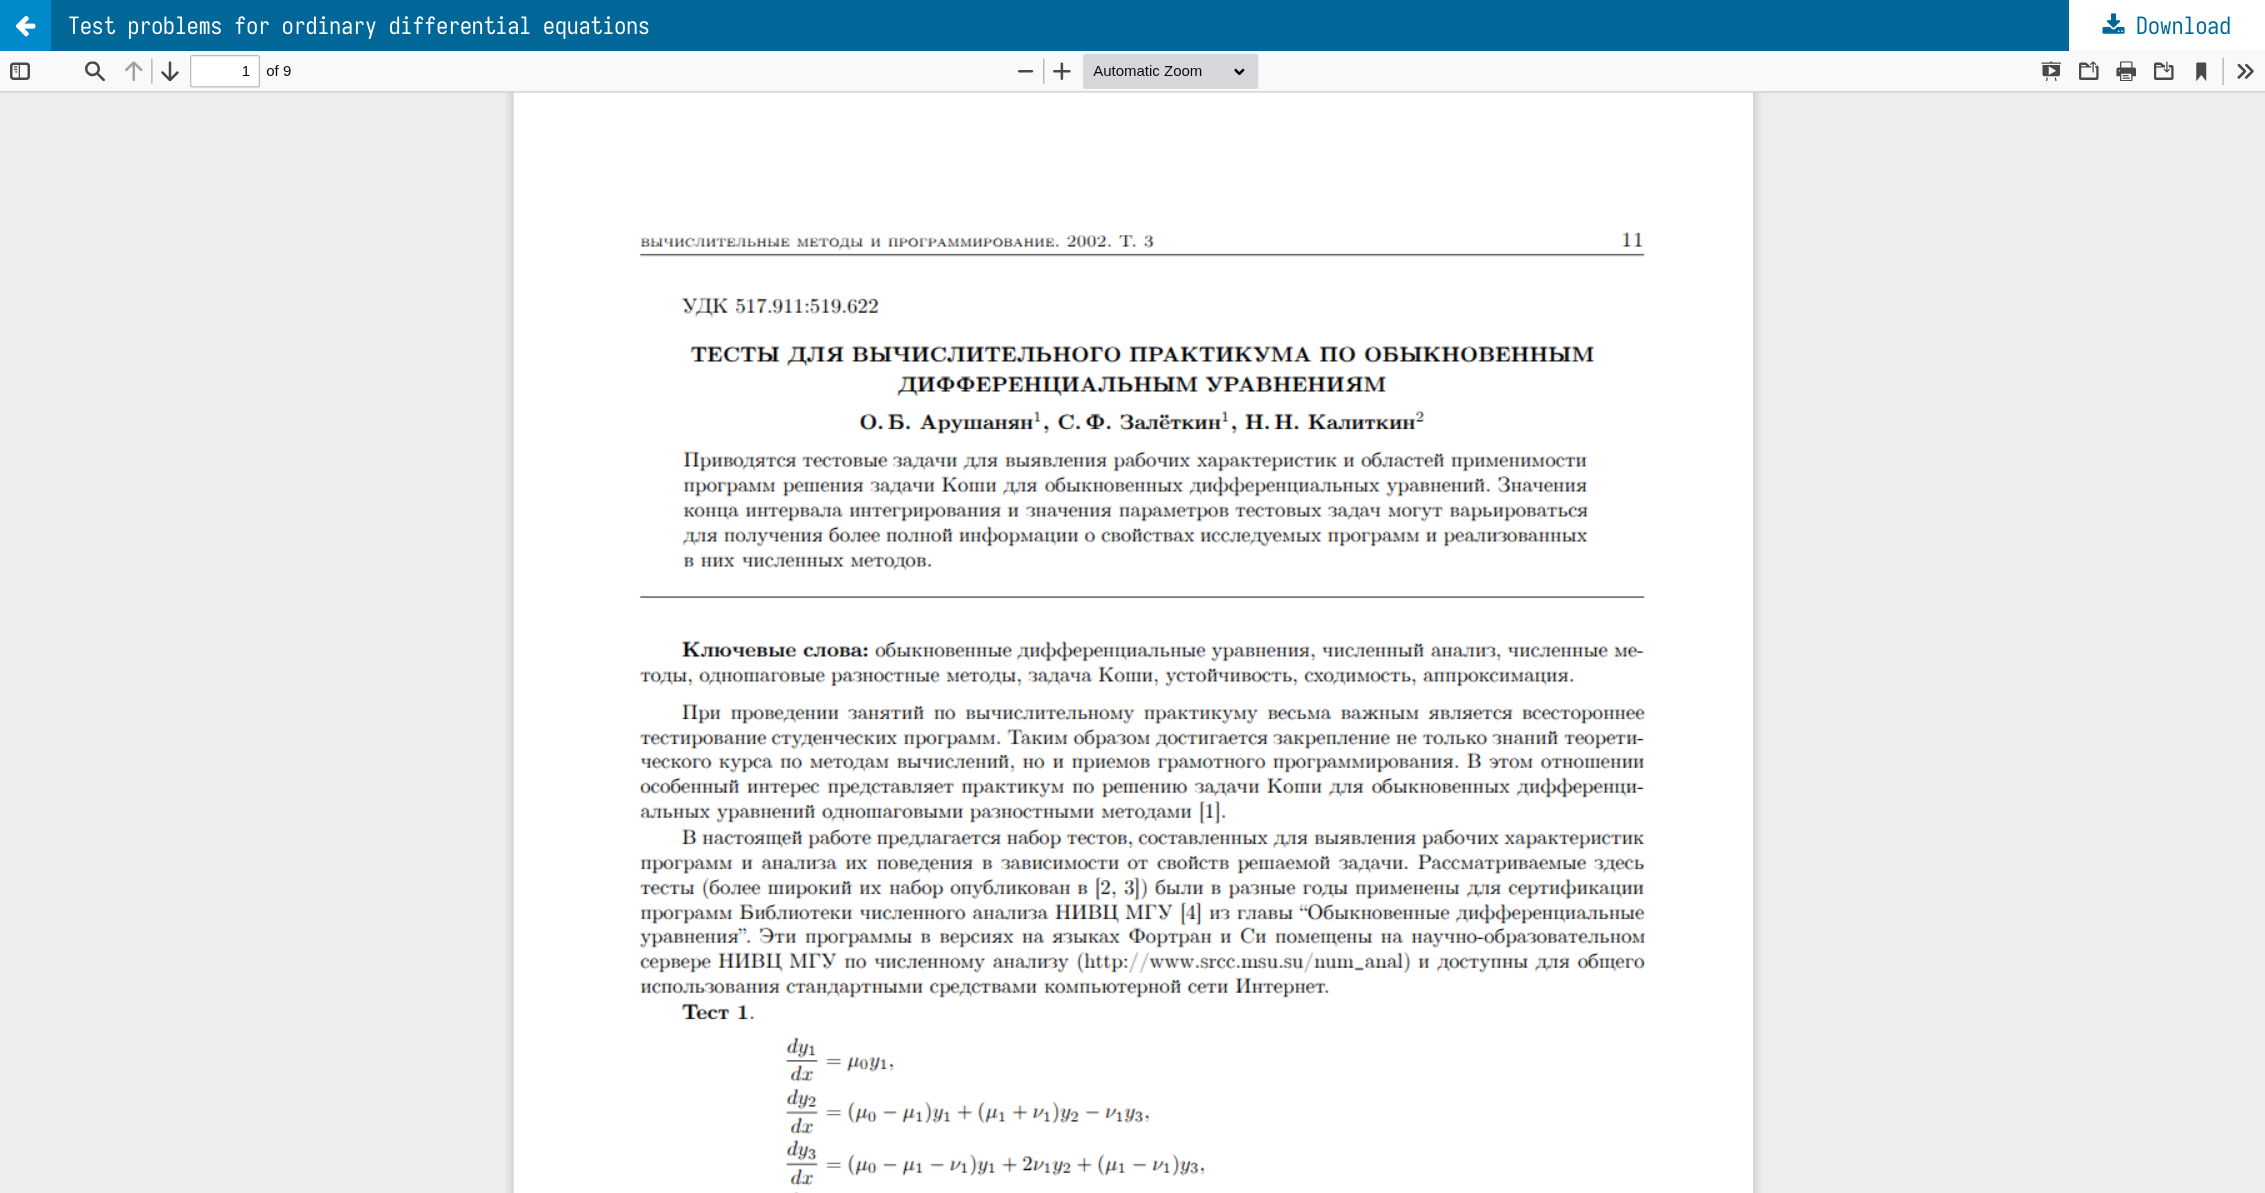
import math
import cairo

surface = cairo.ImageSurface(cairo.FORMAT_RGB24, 2265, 1193)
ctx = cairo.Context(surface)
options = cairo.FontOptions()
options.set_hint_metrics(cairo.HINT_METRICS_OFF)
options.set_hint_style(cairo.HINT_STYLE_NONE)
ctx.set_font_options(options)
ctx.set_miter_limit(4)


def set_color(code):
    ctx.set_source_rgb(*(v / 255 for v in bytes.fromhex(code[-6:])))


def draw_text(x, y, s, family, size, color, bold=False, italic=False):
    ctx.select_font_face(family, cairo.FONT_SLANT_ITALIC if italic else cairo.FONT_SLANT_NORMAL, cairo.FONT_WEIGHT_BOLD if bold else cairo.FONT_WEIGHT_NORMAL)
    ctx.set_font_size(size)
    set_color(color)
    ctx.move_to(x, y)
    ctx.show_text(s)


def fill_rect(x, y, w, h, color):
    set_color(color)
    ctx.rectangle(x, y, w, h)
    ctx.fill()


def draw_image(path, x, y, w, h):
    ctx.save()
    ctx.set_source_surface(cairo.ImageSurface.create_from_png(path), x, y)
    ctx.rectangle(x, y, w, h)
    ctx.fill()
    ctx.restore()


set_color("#ffffff")
ctx.paint()
fill_rect(51, 0, 2018, 51, "#006798")
fill_rect(0, 0, 51, 51, "#008acb")
draw_image("assets/img1.png", 15, 15, 21, 22)
draw_text(68, 34, "Test problems for ordinary differential equations", "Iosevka", 23.75, "#ffffff")
draw_image("assets/img2.png", 2102, 13, 23, 21)
draw_text(2136, 34, "Download", "Iosevka", 23.75, "#006798")
draw_image("assets/img3.png", 0, 51, 2265, 1142)
surface.write_to_png("output.png")
